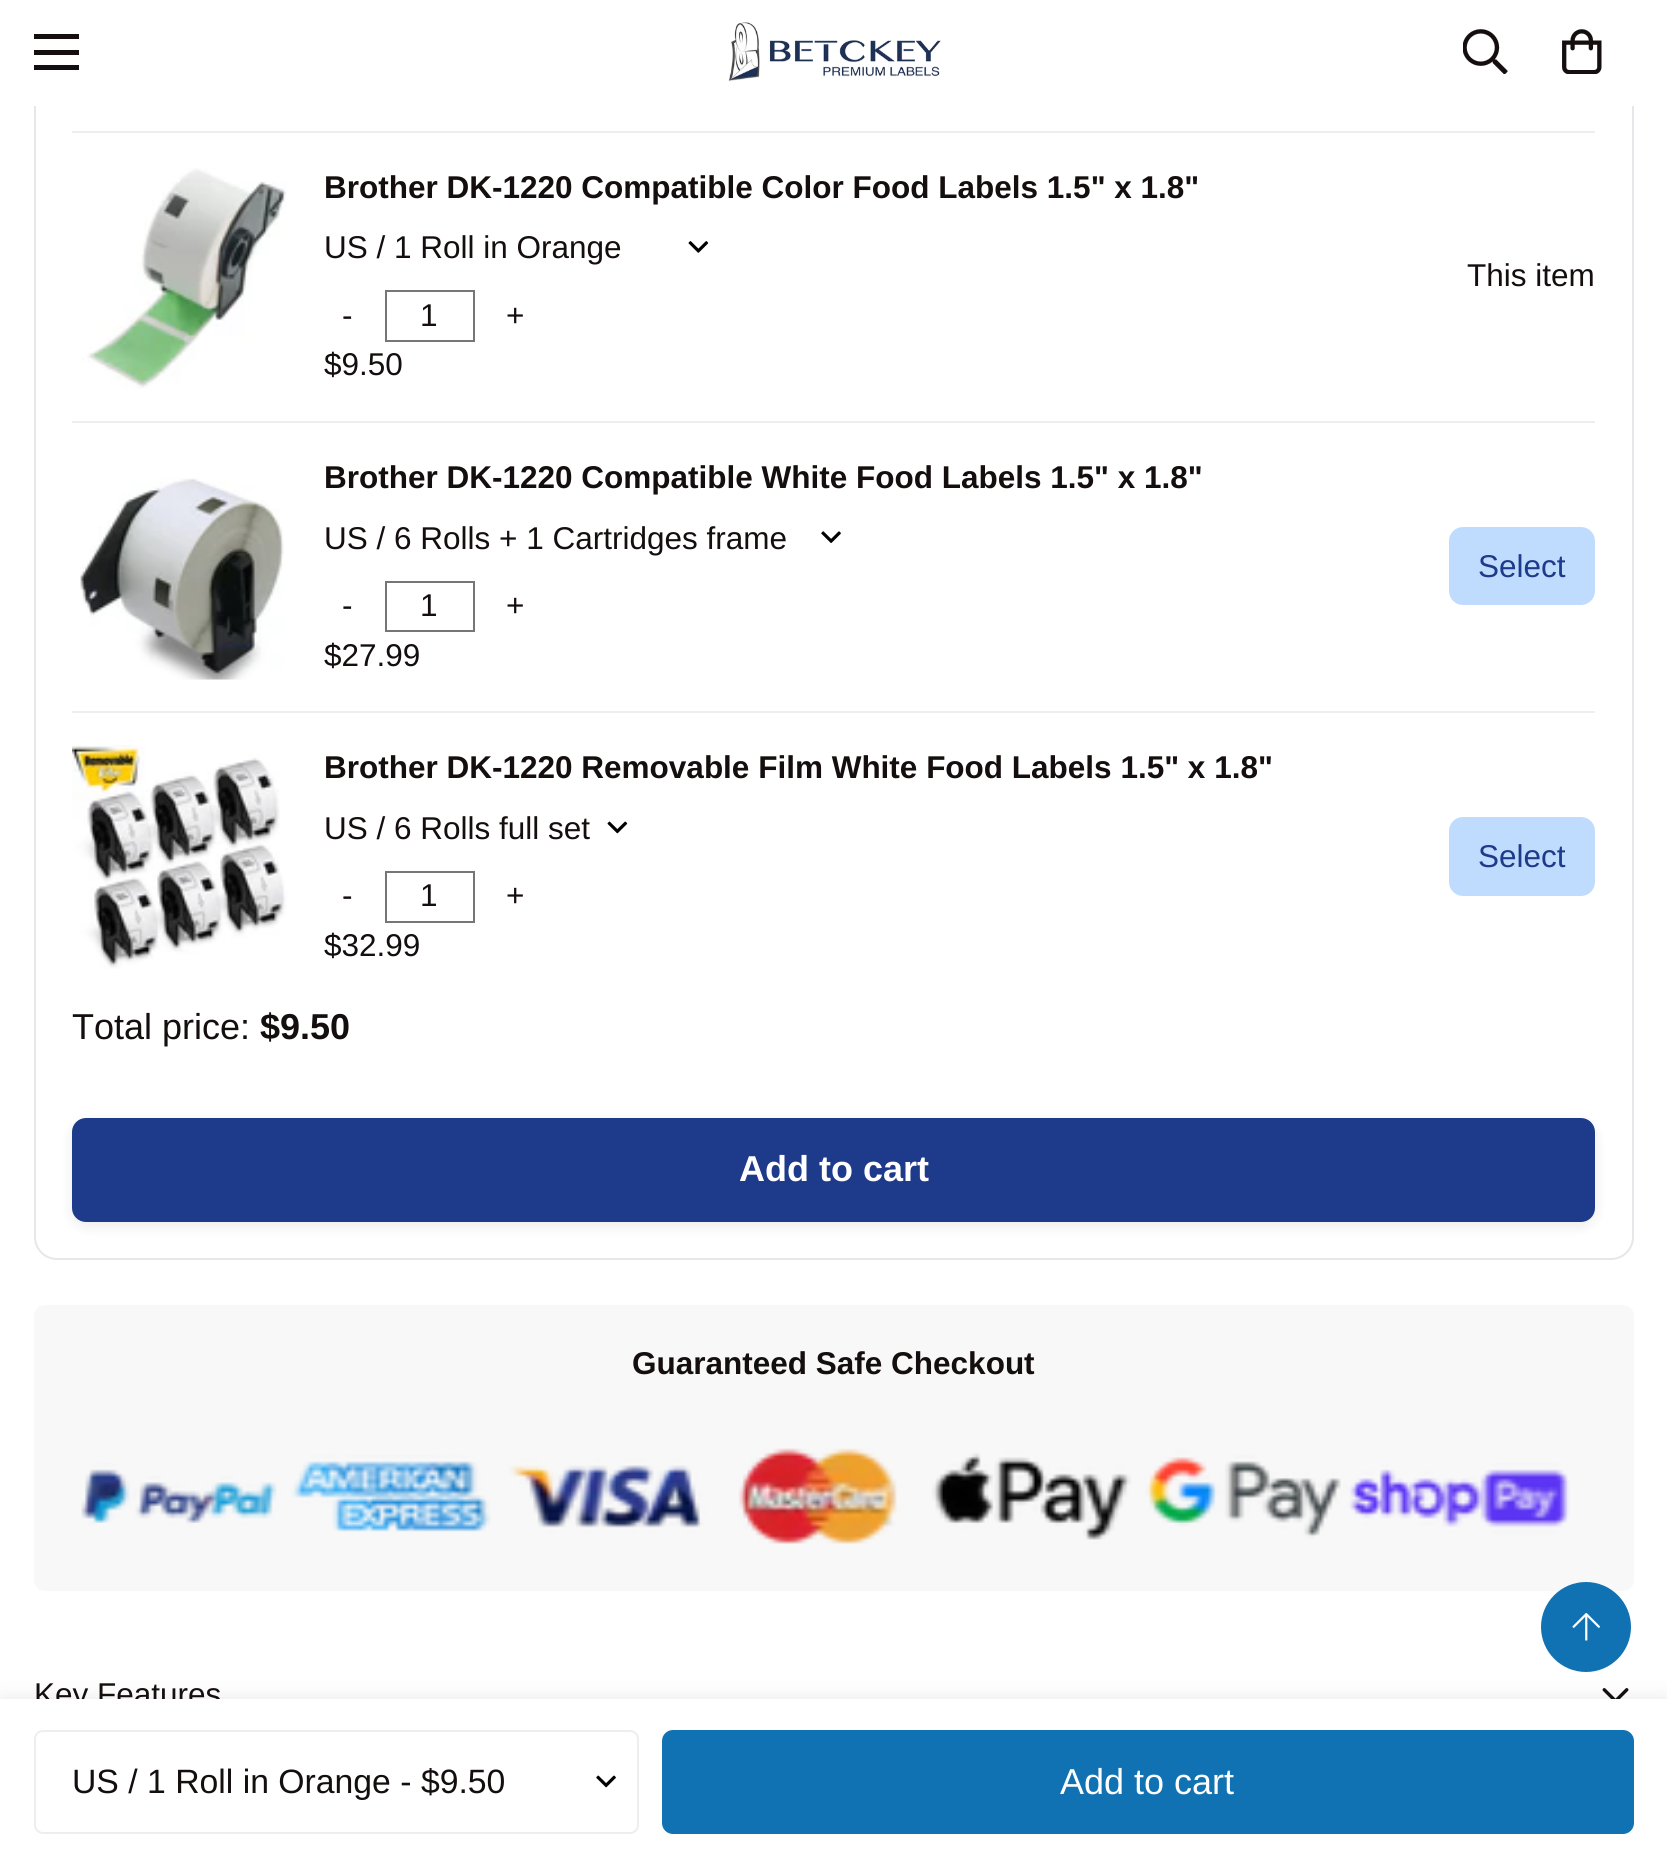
import math
import cairo

surface = cairo.ImageSurface(cairo.FORMAT_RGB24, 1667, 1865)
ctx = cairo.Context(surface)
options = cairo.FontOptions()
options.set_hint_metrics(cairo.HINT_METRICS_OFF)
options.set_hint_style(cairo.HINT_STYLE_NONE)
ctx.set_font_options(options)
ctx.set_miter_limit(4)


def set_color(code):
    ctx.set_source_rgb(*(v / 255 for v in bytes.fromhex(code[-6:])))


def draw_text(x, y, s, family, size, color, bold=False, italic=False):
    ctx.select_font_face(family, cairo.FONT_SLANT_ITALIC if italic else cairo.FONT_SLANT_NORMAL, cairo.FONT_WEIGHT_BOLD if bold else cairo.FONT_WEIGHT_NORMAL)
    ctx.set_font_size(size)
    set_color(color)
    ctx.move_to(x, y)
    ctx.show_text(s)


def fill_rect(x, y, w, h, color):
    set_color(color)
    ctx.rectangle(x, y, w, h)
    ctx.fill()


def rounded_rect(x, y, w, h, r):
    ctx.new_sub_path()
    for i, (u, v) in enumerate([(x + w - r, y + h - r), (x + r, y + h - r), (x + r, y + r), (x + w - r, y + r)]):
        ctx.arc(u, v, r, i * math.pi / 2, (i + 1) * math.pi / 2)
    ctx.close_path()


def draw_shadow(x, y, w, h, r, blur, alpha):
    ctx.push_group_with_content(cairo.CONTENT_ALPHA)
    ctx.set_operator(cairo.OPERATOR_SOURCE)
    for i in range(15, -16, -2):
        e = blur * i / 6
        if min(w, h) + 2 * e > 0:
            ctx.set_source_rgba(0, 0, 0, alpha * math.erfc((i - 1) / 8.5) / 2)
            rounded_rect(x - e, y - e, w + 2 * e, h + 2 * e, max(0, min(r + e + blur * .6, min(w, h) / 2 + e)))
            ctx.fill()
    ctx.mask(ctx.pop_group())


def draw_image(path, x, y, w, h):
    ctx.save()
    ctx.set_source_surface(cairo.ImageSurface.create_from_png(path), x, y)
    ctx.rectangle(x, y, w, h)
    ctx.fill()
    ctx.restore()


set_color("#ffffff")
ctx.paint()
rounded_rect(35, 6, 1598, 1253, 22)
set_color("#e5e7eb")
ctx.stroke()
fill_rect(34, 5, 1600, 101, "#ffffff")
fill_rect(34, 50, 45, 5, "#150e0e")
fill_rect(34, 34, 45, 5, "#150e0e")
fill_rect(34, 65, 45, 5, "#150e0e")
draw_image("assets/img1.png", 728, 22, 213, 60)
draw_image("assets/img2.png", 1463, 29, 45, 45)
draw_image("assets/img3.png", 1562, 29, 40, 45)
fill_rect(72, 131, 1523, 2, "#eeeeee")
draw_image("assets/img4.png", 82, 168, 205, 221)
draw_text(324, 198, "Brother DK-1220 Compatible Color Food Labels 1.5\" x 1.8\"", "Liberation Sans", 31.5, "#150e0e", bold=True)
draw_image("assets/img5.png", 688, 241, 21, 12)
draw_text(324, 258, "US / 1 Roll in Orange", "Liberation Sans", 31.5, "#150e0e")
draw_text(342, 326, "-", "Liberation Sans", 31.5, "#150e0e")
ctx.rectangle(386, 291, 88, 50)
set_color("#767676")
ctx.stroke()
draw_text(420, 326, "1", "Liberation Sans", 31.5, "#150e0e")
draw_text(506, 326, "+", "Liberation Sans", 31.5, "#150e0e")
draw_text(324, 375, "$9.50", "Liberation Sans", 31.5, "#150e0e")
draw_text(1467, 286, "This item", "Liberation Sans", 31.5, "#150e0e")
fill_rect(72, 421, 1523, 2, "#eeeeee")
draw_image("assets/img6.png", 80, 478, 204, 202)
draw_text(324, 488, "Brother DK-1220 Compatible White Food Labels 1.5\" x 1.8\"", "Liberation Sans", 31.5, "#150e0e", bold=True)
draw_image("assets/img7.png", 821, 531, 20, 12)
draw_text(324, 549, "US / 6 Rolls + 1 Cartridges frame", "Liberation Sans", 31.5, "#150e0e")
draw_text(342, 616, "-", "Liberation Sans", 31.5, "#150e0e")
ctx.rectangle(386, 582, 88, 49)
set_color("#767676")
ctx.stroke()
draw_text(420, 616, "1", "Liberation Sans", 31.5, "#150e0e")
draw_text(506, 616, "+", "Liberation Sans", 31.5, "#150e0e")
draw_text(324, 666, "$27.99", "Liberation Sans", 31.5, "#150e0e")
set_color("#bfdbfe")
rounded_rect(1450, 528, 144, 76, 13)
ctx.fill_preserve()
ctx.stroke()
draw_text(1478, 577, "Select", "Liberation Sans", 31.5, "#1e3a8a")
fill_rect(72, 711, 1523, 2, "#eeeeee")
draw_image("assets/img8.png", 72, 745, 215, 224)
draw_text(324, 778, "Brother DK-1220 Removable Film White Food Labels 1.5\" x 1.8\"", "Liberation Sans", 31.5, "#150e0e", bold=True)
draw_image("assets/img9.png", 607, 821, 21, 13)
draw_text(324, 839, "US / 6 Rolls full set", "Liberation Sans", 31.5, "#150e0e")
draw_text(342, 906, "-", "Liberation Sans", 31.5, "#150e0e")
ctx.rectangle(386, 872, 88, 50)
set_color("#767676")
ctx.stroke()
draw_text(420, 906, "1", "Liberation Sans", 31.5, "#150e0e")
draw_text(506, 906, "+", "Liberation Sans", 31.5, "#150e0e")
draw_text(324, 956, "$32.99", "Liberation Sans", 31.5, "#150e0e")
set_color("#bfdbfe")
rounded_rect(1450, 818, 144, 77, 13)
ctx.fill_preserve()
ctx.stroke()
draw_text(1478, 867, "Select", "Liberation Sans", 31.5, "#1e3a8a")
draw_text(72, 1039, "Total price:", "Liberation Sans", 36, "#150e0e")
draw_text(260, 1039, "$9.50", "Liberation Sans", 36, "#150e0e", bold=True)
set_color("#000000")
draw_shadow(72, 1123, 1523, 103, 14, 7, 0.08)
set_color("#1e3a8a")
rounded_rect(73, 1119, 1521, 102, 13)
ctx.fill_preserve()
ctx.stroke()
draw_text(739, 1181, "Add to cart", "Liberation Sans", 36, "#ffffff", bold=True)
set_color("#f8f8f8")
rounded_rect(34, 1305, 1600, 286, 11)
ctx.fill()
draw_text(632, 1374, "Guaranteed Safe Checkout", "Liberation Sans", 31.5, "#150e0e", bold=True)
draw_image("assets/img10.png", 81, 1448, 1489, 96)
draw_text(34, 1705, "Key Features", "Liberation Sans", 31.5, "#150e0e")
draw_image("assets/img11.png", 1602, 1688, 27, 11)
set_color("#000000")
draw_shadow(0, 1699, 1667, 166, 0, 11, 0.09)
fill_rect(0, 1699, 1667, 166, "#ffffff")
draw_image("assets/img12.png", 596, 1775, 20, 13)
rounded_rect(35, 1731, 603, 102, 8)
set_color("#eeeeee")
ctx.stroke()
draw_text(72, 1793, "US / 1 Roll in Orange - $9.50", "Liberation Sans", 33.75, "#150e0e")
set_color("#1172b3")
rounded_rect(663, 1731, 970, 102, 10)
ctx.fill_preserve()
ctx.stroke()
draw_text(1060, 1794, "Add to cart", "Liberation Sans", 36, "#ffffff")
set_color("#1172b3")
ctx.new_path()
ctx.arc(1586, 1627, 44, 0, 2 * math.pi)
ctx.fill_preserve()
ctx.stroke()
draw_image("assets/img13.png", 1572, 1613, 28, 28)
surface.write_to_png("output.png")
